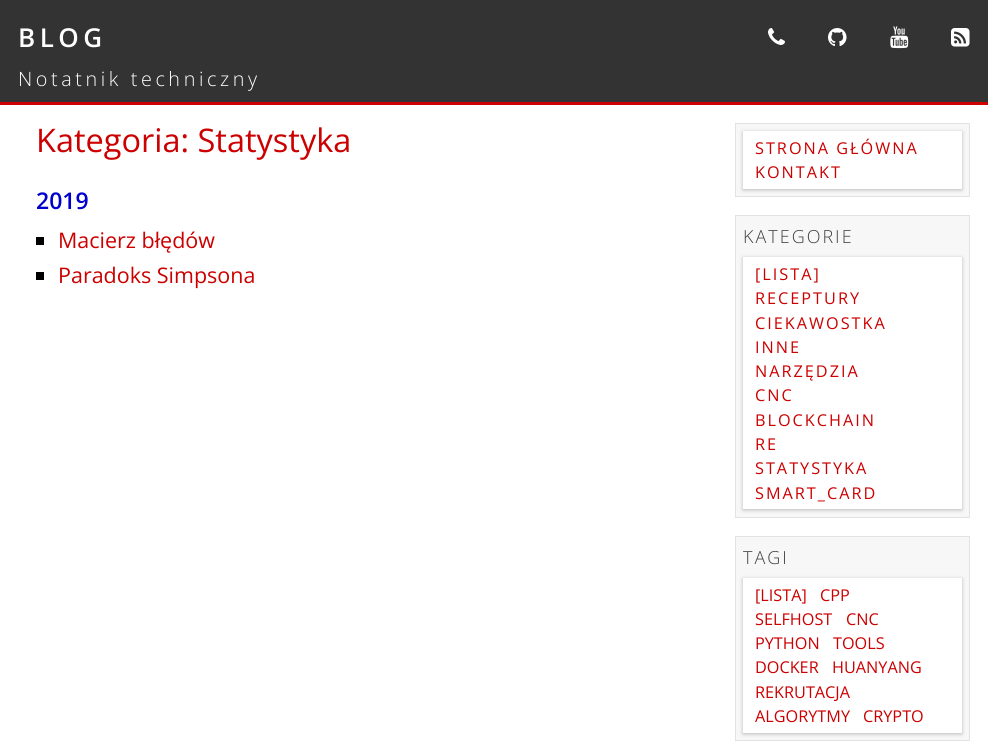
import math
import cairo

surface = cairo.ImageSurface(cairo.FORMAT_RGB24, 988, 747)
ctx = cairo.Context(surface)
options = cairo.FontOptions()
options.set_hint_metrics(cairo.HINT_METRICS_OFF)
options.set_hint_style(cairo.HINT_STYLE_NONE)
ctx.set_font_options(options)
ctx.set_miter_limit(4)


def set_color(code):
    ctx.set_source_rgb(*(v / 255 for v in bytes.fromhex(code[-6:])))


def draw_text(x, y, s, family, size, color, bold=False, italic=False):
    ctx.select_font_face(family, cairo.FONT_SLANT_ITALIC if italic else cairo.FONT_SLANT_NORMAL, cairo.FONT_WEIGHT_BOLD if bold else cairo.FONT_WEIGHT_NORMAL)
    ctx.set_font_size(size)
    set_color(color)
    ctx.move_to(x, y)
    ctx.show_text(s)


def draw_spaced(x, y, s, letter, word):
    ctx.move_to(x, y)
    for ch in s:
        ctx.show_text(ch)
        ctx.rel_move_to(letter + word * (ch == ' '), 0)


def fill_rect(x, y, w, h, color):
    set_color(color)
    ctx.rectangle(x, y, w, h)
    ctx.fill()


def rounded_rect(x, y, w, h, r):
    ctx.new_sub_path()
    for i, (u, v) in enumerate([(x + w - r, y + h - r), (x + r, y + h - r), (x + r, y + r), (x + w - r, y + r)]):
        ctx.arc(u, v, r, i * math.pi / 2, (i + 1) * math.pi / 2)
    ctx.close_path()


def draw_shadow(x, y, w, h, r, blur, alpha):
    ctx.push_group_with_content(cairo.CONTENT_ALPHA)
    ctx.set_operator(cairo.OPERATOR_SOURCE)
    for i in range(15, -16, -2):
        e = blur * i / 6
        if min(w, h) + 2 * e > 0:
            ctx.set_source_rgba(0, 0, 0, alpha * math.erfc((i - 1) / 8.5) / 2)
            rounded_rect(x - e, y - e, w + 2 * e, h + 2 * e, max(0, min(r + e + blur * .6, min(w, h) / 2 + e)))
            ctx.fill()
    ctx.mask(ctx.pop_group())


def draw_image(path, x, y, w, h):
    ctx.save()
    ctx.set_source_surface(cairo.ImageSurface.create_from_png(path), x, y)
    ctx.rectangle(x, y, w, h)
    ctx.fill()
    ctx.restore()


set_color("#ffffff")
ctx.paint()
fill_rect(0, 0, 988, 102, "#333333")
ctx.select_font_face("Open Sans SemiBold")
ctx.set_font_size(26)
set_color("#ffffff")
draw_spaced(18, 47, "BLOG", 4.5, 0)
draw_image("assets/img1.png", 768, 28, 17, 17)
draw_image("assets/img2.png", 828, 28, 19, 19)
draw_image("assets/img3.png", 890, 26, 19, 23)
draw_image("assets/img4.png", 951, 28, 19, 19)
ctx.select_font_face("Open Sans Light")
ctx.set_font_size(19.75)
draw_spaced(18, 86, "Notatnik techniczny", 3.6, 0)
fill_rect(0, 102, 988, 3, "#cc0000")
draw_text(36, 152, "Kategoria: Statystyka", "Open Sans", 32.5, "#cc0000")
draw_text(36, 209, "2019", "Open Sans SemiBold", 23, "#0000cc")
fill_rect(36, 237, 8, 8, "#000000")
draw_text(58, 248, "Macierz błędów", "Open Sans", 21.5, "#cc0000")
fill_rect(36, 272, 8, 8, "#000000")
draw_text(58, 283, "Paradoks Simpsona", "Open Sans", 21.5, "#cc0000")
set_color("#f7f7f7")
ctx.rectangle(735.5, 123.5, 234, 73)
ctx.fill_preserve()
set_color("#e2e2e2")
ctx.set_line_width(1)
ctx.stroke()
set_color("#000000")
draw_shadow(743, 132, 219, 58, 0, 2, 0.25)
fill_rect(743, 131, 219, 58, "#ffffff")
ctx.set_font_size(16.25)
set_color("#cc0000")
draw_spaced(755, 154, "STRONA GŁÓWNA", 2, 0)
draw_spaced(755, 178, "KONTAKT", 2, 0)
set_color("#f7f7f7")
ctx.rectangle(735.5, 215.5, 234, 302)
ctx.fill_preserve()
set_color("#e2e2e2")
ctx.stroke()
ctx.select_font_face("Open Sans Light")
ctx.set_font_size(18)
set_color("#404040")
draw_spaced(743, 243, "KATEGORIE", 2, 0)
set_color("#000000")
draw_shadow(743, 258, 219, 252, 0, 2, 0.25)
fill_rect(743, 257, 219, 252, "#ffffff")
ctx.select_font_face("Open Sans")
ctx.set_font_size(16.25)
set_color("#cc0000")
draw_spaced(755, 280, "[LISTA]", 2, 0)
draw_spaced(755, 304, "RECEPTURY", 2, 0)
draw_spaced(755, 329, "CIEKAWOSTKA", 2, 0)
draw_spaced(755, 353, "INNE", 2, 0)
draw_spaced(755, 377, "NARZĘDZIA", 2, 0)
draw_spaced(755, 401, "CNC", 2, 0)
draw_spaced(755, 426, "BLOCKCHAIN", 2, 0)
draw_spaced(755, 450, "RE", 2, 0)
draw_spaced(755, 474, "STATYSTYKA", 2, 0)
draw_spaced(755, 499, "SMART_CARD", 2, 0)
set_color("#f7f7f7")
ctx.rectangle(735.5, 536.5, 234, 204)
ctx.fill_preserve()
set_color("#e2e2e2")
ctx.stroke()
ctx.select_font_face("Open Sans Light")
ctx.set_font_size(18)
set_color("#404040")
draw_spaced(743, 564, "TAGI", 2, 0)
set_color("#000000")
draw_shadow(743, 579, 219, 155, 0, 2, 0.25)
fill_rect(743, 578, 219, 155, "#ffffff")
draw_text(755, 601, "[LISTA]", "Open Sans", 16.25, "#cc0000")
draw_text(820, 601, "CPP", "Open Sans", 16.25, "#cc0000")
draw_text(755, 625, "SELFHOST", "Open Sans", 16.25, "#cc0000")
draw_text(846, 625, "CNC", "Open Sans", 16.25, "#cc0000")
draw_text(755, 649, "PYTHON", "Open Sans", 16.25, "#cc0000")
draw_text(833, 649, "TOOLS", "Open Sans", 16.25, "#cc0000")
draw_text(755, 673, "DOCKER", "Open Sans", 16.25, "#cc0000")
draw_text(832, 673, "HUANYANG", "Open Sans", 16.25, "#cc0000")
draw_text(755, 698, "REKRUTACJA", "Open Sans", 16.25, "#cc0000")
draw_text(755, 722, "ALGORYTMY", "Open Sans", 16.25, "#cc0000")
draw_text(863, 722, "CRYPTO", "Open Sans", 16.25, "#cc0000")
surface.write_to_png("output.png")
